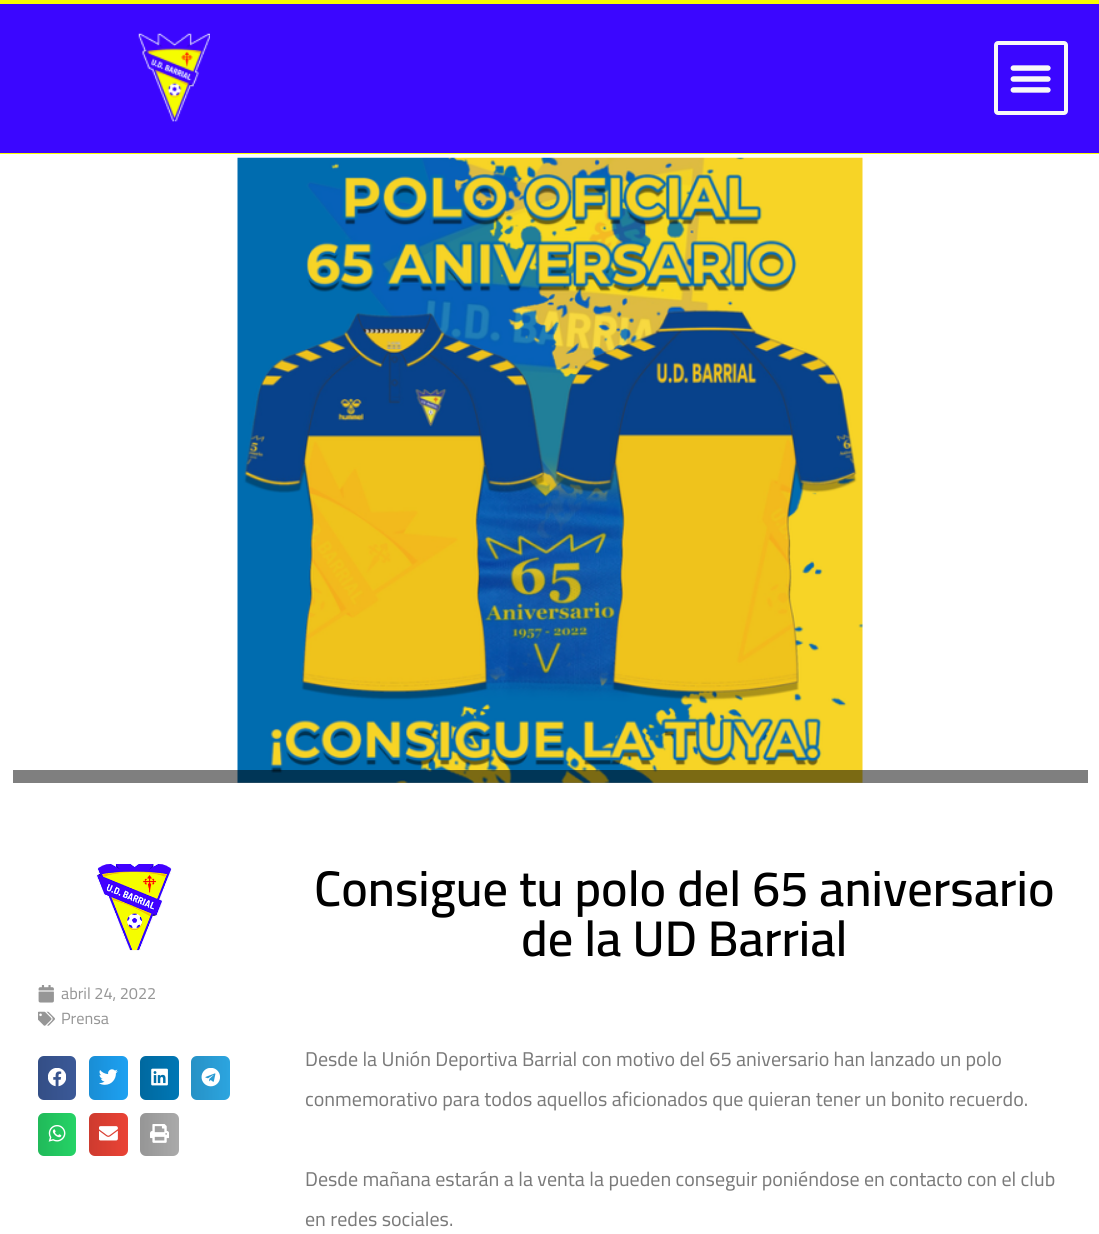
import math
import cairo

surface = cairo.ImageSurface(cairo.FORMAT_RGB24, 1099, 1234)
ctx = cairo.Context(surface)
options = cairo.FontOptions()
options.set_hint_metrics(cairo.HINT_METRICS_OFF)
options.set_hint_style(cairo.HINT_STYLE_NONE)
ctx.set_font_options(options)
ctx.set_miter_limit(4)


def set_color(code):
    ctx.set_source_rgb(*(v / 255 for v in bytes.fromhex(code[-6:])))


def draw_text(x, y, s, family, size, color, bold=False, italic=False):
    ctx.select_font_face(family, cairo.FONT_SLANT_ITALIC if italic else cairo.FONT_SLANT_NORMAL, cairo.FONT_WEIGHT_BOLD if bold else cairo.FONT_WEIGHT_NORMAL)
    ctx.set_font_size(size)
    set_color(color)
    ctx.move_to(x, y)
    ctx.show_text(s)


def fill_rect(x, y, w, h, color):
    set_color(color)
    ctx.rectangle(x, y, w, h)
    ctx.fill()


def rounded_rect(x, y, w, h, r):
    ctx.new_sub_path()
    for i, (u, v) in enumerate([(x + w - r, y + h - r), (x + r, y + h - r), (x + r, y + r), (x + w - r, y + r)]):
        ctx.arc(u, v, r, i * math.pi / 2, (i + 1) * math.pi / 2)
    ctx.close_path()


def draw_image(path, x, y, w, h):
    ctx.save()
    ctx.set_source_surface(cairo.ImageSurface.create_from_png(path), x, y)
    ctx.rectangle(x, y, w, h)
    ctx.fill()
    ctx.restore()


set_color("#ffffff")
ctx.paint()
fill_rect(0, 4, 1099, 149, "#3b06ff")
fill_rect(0, 0, 1099, 4, "#f9fd00")
fill_rect(0, 153, 1099, 1, "#f9fd00")
draw_image("assets/img1.png", 138, 33, 72, 89)
rounded_rect(996, 43, 70, 70, 2)
set_color("#f8f8f8")
ctx.set_line_width(4)
ctx.stroke()
draw_image("assets/img2.png", 1010, 65, 41, 28)
draw_image("assets/img3.png", 237, 157, 626, 626)
ctx.set_source_rgba(0, 0, 0, 0.5)
ctx.rectangle(13, 770, 1075, 13)
ctx.fill()
draw_image("assets/img4.png", 96, 864, 76, 87)
draw_image("assets/img5.png", 38, 985, 16, 18)
draw_text(61, 999, "abril 24, 2022", "Cairo", 16.25, "#969696")
draw_image("assets/img6.png", 38, 1011, 17, 15)
draw_text(61, 1024, "Prensa", "Cairo", 16.25, "#969696")
set_color("#3b5998")
rounded_rect(38, 1056, 38, 44, 6)
ctx.fill()
gradient = cairo.LinearGradient(38, 1078, 76, 1078)
gradient.add_color_stop_rgba(0, 0, 0, 0, 0.12)
gradient.add_color_stop_rgba(1, 0, 0, 0, 0)
ctx.set_source(gradient)
rounded_rect(38, 1056, 38, 44, 6)
ctx.fill()
draw_image("assets/img7.png", 48, 1068, 18, 19)
set_color("#1da1f2")
rounded_rect(89, 1056, 39, 44, 6)
ctx.fill()
gradient = cairo.LinearGradient(89, 1078, 128, 1078)
gradient.add_color_stop_rgba(0, 0, 0, 0, 0.12)
gradient.add_color_stop_rgba(1, 0, 0, 0, 0)
ctx.set_source(gradient)
rounded_rect(89, 1056, 39, 44, 6)
ctx.fill()
draw_image("assets/img8.png", 99, 1069, 19, 16)
set_color("#0077b5")
rounded_rect(140, 1056, 39, 44, 6)
ctx.fill()
gradient = cairo.LinearGradient(140, 1078, 179, 1078)
gradient.add_color_stop_rgba(0, 0, 0, 0, 0.12)
gradient.add_color_stop_rgba(1, 0, 0, 0, 0)
ctx.set_source(gradient)
rounded_rect(140, 1056, 39, 44, 6)
ctx.fill()
draw_image("assets/img9.png", 151, 1068, 17, 18)
set_color("#2ca5e0")
rounded_rect(191, 1056, 39, 44, 6)
ctx.fill()
gradient = cairo.LinearGradient(191, 1078, 230, 1078)
gradient.add_color_stop_rgba(0, 0, 0, 0, 0.12)
gradient.add_color_stop_rgba(1, 0, 0, 0, 0)
ctx.set_source(gradient)
rounded_rect(191, 1056, 39, 44, 6)
ctx.fill()
draw_image("assets/img10.png", 201, 1068, 19, 19)
set_color("#25d366")
rounded_rect(38, 1113, 38, 43, 6)
ctx.fill()
gradient = cairo.LinearGradient(38, 1134, 76, 1134)
gradient.add_color_stop_rgba(0, 0, 0, 0, 0.12)
gradient.add_color_stop_rgba(1, 0, 0, 0, 0)
ctx.set_source(gradient)
rounded_rect(38, 1113, 38, 43, 6)
ctx.fill()
draw_image("assets/img11.png", 48, 1125, 18, 17)
set_color("#ea4335")
rounded_rect(89, 1113, 39, 43, 6)
ctx.fill()
gradient = cairo.LinearGradient(89, 1134, 128, 1134)
gradient.add_color_stop_rgba(0, 0, 0, 0, 0.12)
gradient.add_color_stop_rgba(1, 0, 0, 0, 0)
ctx.set_source(gradient)
rounded_rect(89, 1113, 39, 43, 6)
ctx.fill()
draw_image("assets/img12.png", 99, 1126, 19, 15)
set_color("#aaaaaa")
rounded_rect(140, 1113, 39, 43, 6)
ctx.fill()
gradient = cairo.LinearGradient(140, 1134, 179, 1134)
gradient.add_color_stop_rgba(0, 0, 0, 0, 0.12)
gradient.add_color_stop_rgba(1, 0, 0, 0, 0)
ctx.set_source(gradient)
rounded_rect(140, 1113, 39, 43, 6)
ctx.fill()
draw_image("assets/img13.png", 150, 1124, 19, 19)
draw_text(314, 906, "Consigue tu polo del 65 aniversario", "Cairo SemiBold", 50, "#000000")
draw_text(521, 956, "de la UD Barrial", "Cairo SemiBold", 50, "#000000")
draw_text(305, 1066, "Desde la Unión Deportiva Barrial con motivo del 65 aniversario han lanzado un polo", "Cairo", 20, "#7a7a7a")
draw_text(305, 1106, "conmemorativo para todos aquellos aficionados que quieran tener un bonito recuerdo.", "Cairo", 20, "#7a7a7a")
draw_text(305, 1186, "Desde mañana estarán a la venta la pueden conseguir poniéndose en contacto con el club", "Cairo", 20, "#7a7a7a")
draw_text(305, 1226, "en redes sociales.", "Cairo", 20, "#7a7a7a")
surface.write_to_png("output.png")
